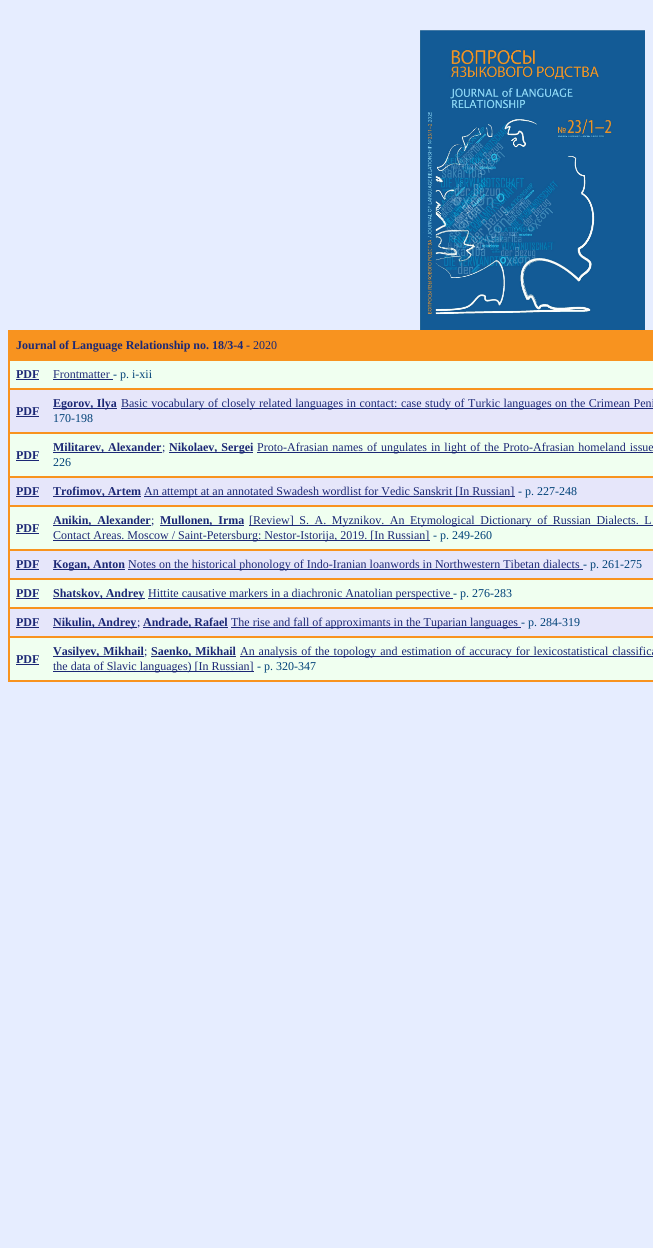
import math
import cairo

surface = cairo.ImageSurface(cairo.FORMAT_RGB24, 653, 1248)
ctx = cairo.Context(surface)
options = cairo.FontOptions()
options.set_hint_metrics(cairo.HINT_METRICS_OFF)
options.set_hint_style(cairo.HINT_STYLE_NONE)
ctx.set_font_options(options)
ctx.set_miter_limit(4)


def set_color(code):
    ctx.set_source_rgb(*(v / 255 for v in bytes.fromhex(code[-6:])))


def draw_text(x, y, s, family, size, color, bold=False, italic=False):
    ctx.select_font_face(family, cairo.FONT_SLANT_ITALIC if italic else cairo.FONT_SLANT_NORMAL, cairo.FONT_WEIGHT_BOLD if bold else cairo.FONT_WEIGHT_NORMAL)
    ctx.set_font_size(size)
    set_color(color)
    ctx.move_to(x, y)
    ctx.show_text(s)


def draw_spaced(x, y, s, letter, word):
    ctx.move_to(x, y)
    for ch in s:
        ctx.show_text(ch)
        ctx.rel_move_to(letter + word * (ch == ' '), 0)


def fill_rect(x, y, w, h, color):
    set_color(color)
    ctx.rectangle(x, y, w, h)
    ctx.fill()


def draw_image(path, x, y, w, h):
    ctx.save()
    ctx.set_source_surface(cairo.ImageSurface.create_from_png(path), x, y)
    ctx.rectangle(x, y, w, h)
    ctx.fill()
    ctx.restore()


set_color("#e6edff")
ctx.paint()
draw_image("assets/img1.png", 420, 30, 225, 300)
fill_rect(8, 330, 645, 352, "#f8931f")
draw_text(16, 349, "Journal of Language Relationship no. 18/3-4", "Liberation Serif", 12, "#1c2875", bold=True)
draw_text(246, 349, "- 2020", "Liberation Serif", 12, "#1c2875")
fill_rect(10, 361, 643, 27, "#f0fff0")
draw_text(16, 378, "PDF", "Liberation Serif", 12, "#1c2875", bold=True)
fill_rect(16, 379, 23, 1, "#1c2875")
draw_text(53, 378, "Frontmatter", "Liberation Serif", 12, "#1c2875")
draw_text(113, 378, "- p. i-xii", "Liberation Serif", 12, "#004177")
fill_rect(53, 379, 60, 1, "#1c2875")
fill_rect(10, 390, 643, 42, "#e6e6fa")
draw_text(16, 415, "PDF", "Liberation Serif", 12, "#1c2875", bold=True)
fill_rect(16, 416, 23, 1, "#1c2875")
fill_rect(53, 408, 64, 1, "#1c2875")
draw_spaced(53, 407, "Egorov, Ilya", 0, 0.5)
fill_rect(121, 408, 532, 1, "#1c2875")
ctx.select_font_face("Liberation Serif")
draw_spaced(121, 407, "Basic vocabulary of closely related languages in contact: case study of Turkic languages on the Crimean Peni", 0, 0.5)
draw_text(53, 422, "170-198", "Liberation Serif", 12, "#004177")
fill_rect(10, 434, 643, 42, "#f0fff0")
draw_text(16, 459, "PDF", "Liberation Serif", 12, "#1c2875", bold=True)
fill_rect(16, 460, 23, 1, "#1c2875")
fill_rect(53, 452, 109, 1, "#1c2875")
draw_spaced(53, 451, "Militarev, Alexander", 0, 1)
draw_text(162, 451, ";", "Liberation Serif", 12, "#1c2875")
fill_rect(169, 452, 84, 1, "#1c2875")
ctx.select_font_face("Liberation Serif", cairo.FONT_SLANT_NORMAL, cairo.FONT_WEIGHT_BOLD)
draw_spaced(169, 451, "Nikolaev, Sergei", 0, 1)
fill_rect(257, 452, 396, 1, "#1c2875")
ctx.select_font_face("Liberation Serif")
draw_spaced(257, 451, "Proto-Afrasian names of ungulates in light of the Proto-Afrasian homeland issue", 0, 1)
draw_text(53, 466, "226", "Liberation Serif", 12, "#004177")
fill_rect(10, 478, 643, 27, "#e6e6fa")
draw_text(16, 495, "PDF", "Liberation Serif", 12, "#1c2875", bold=True)
fill_rect(16, 496, 23, 1, "#1c2875")
fill_rect(53, 496, 88, 1, "#1c2875")
draw_text(53, 495, "Trofimov, Artem", "Liberation Serif", 12, "#1c2875", bold=True)
fill_rect(144, 496, 371, 1, "#1c2875")
draw_text(144, 495, "An attempt at an annotated Swadesh wordlist for Vedic Sanskrit [In Russian]", "Liberation Serif", 12, "#1c2875")
draw_text(518, 495, "- p. 227-248", "Liberation Serif", 12, "#004177")
fill_rect(10, 507, 643, 42, "#f0fff0")
draw_text(16, 532, "PDF", "Liberation Serif", 12, "#1c2875", bold=True)
fill_rect(16, 533, 23, 1, "#1c2875")
fill_rect(53, 525, 98, 1, "#1c2875")
draw_spaced(53, 524, "Anikin, Alexander", 0, 3)
draw_text(151, 524, ";", "Liberation Serif", 12, "#1c2875")
fill_rect(160, 525, 84, 1, "#1c2875")
ctx.select_font_face("Liberation Serif", cairo.FONT_SLANT_NORMAL, cairo.FONT_WEIGHT_BOLD)
draw_spaced(160, 524, "Mullonen, Irma", 0, 3)
fill_rect(249, 525, 404, 1, "#1c2875")
ctx.select_font_face("Liberation Serif")
draw_spaced(249, 524, "[Review] S. A. Myznikov. An Etymological Dictionary of Russian Dialects. L", 0, 2.6)
fill_rect(53, 540, 377, 1, "#1c2875")
draw_text(53, 539, "Contact Areas. Moscow / Saint-Petersburg: Nestor-Istorija, 2019. [In Russian]", "Liberation Serif", 12, "#1c2875")
draw_text(433, 539, "- p. 249-260", "Liberation Serif", 12, "#004177")
fill_rect(10, 551, 643, 27, "#e6e6fa")
draw_text(16, 568, "PDF", "Liberation Serif", 12, "#1c2875", bold=True)
fill_rect(16, 569, 23, 1, "#1c2875")
fill_rect(53, 569, 72, 1, "#1c2875")
draw_text(53, 568, "Kogan, Anton", "Liberation Serif", 12, "#1c2875", bold=True)
fill_rect(128, 569, 455, 1, "#1c2875")
draw_text(128, 568, "Notes on the historical phonology of Indo-Iranian loanwords in Northwestern Tibetan dialects", "Liberation Serif", 12, "#1c2875")
draw_text(583, 568, "- p. 261-275", "Liberation Serif", 12, "#004177")
fill_rect(10, 580, 643, 27, "#f0fff0")
draw_text(16, 597, "PDF", "Liberation Serif", 12, "#1c2875", bold=True)
fill_rect(16, 598, 23, 1, "#1c2875")
fill_rect(53, 598, 92, 1, "#1c2875")
draw_text(53, 597, "Shatskov, Andrey", "Liberation Serif", 12, "#1c2875", bold=True)
fill_rect(148, 598, 305, 1, "#1c2875")
draw_text(148, 597, "Hittite causative markers in a diachronic Anatolian perspective", "Liberation Serif", 12, "#1c2875")
draw_text(453, 597, "- p. 276-283", "Liberation Serif", 12, "#004177")
fill_rect(10, 609, 643, 27, "#e6e6fa")
draw_text(16, 626, "PDF", "Liberation Serif", 12, "#1c2875", bold=True)
fill_rect(16, 627, 23, 1, "#1c2875")
fill_rect(53, 627, 84, 1, "#1c2875")
draw_text(53, 626, "Nikulin, Andrey", "Liberation Serif", 12, "#1c2875", bold=True)
draw_text(137, 626, ";", "Liberation Serif", 12, "#1c2875")
fill_rect(143, 627, 85, 1, "#1c2875")
draw_text(143, 626, "Andrade, Rafael", "Liberation Serif", 12, "#1c2875", bold=True)
fill_rect(231, 627, 290, 1, "#1c2875")
draw_text(231, 626, "The rise and fall of approximants in the Tuparian languages", "Liberation Serif", 12, "#1c2875")
draw_text(521, 626, "- p. 284-319", "Liberation Serif", 12, "#004177")
fill_rect(10, 638, 643, 42, "#f0fff0")
draw_text(16, 663, "PDF", "Liberation Serif", 12, "#1c2875", bold=True)
fill_rect(16, 664, 23, 1, "#1c2875")
fill_rect(53, 656, 91, 1, "#1c2875")
draw_spaced(53, 655, "Vasilyev, Mikhail", 0, 0.9)
draw_text(144, 655, ";", "Liberation Serif", 12, "#1c2875")
fill_rect(151, 656, 85, 1, "#1c2875")
ctx.select_font_face("Liberation Serif", cairo.FONT_SLANT_NORMAL, cairo.FONT_WEIGHT_BOLD)
draw_spaced(151, 655, "Saenko, Mikhail", 0, 0.9)
fill_rect(240, 656, 413, 1, "#1c2875")
ctx.select_font_face("Liberation Serif")
draw_spaced(240, 655, "An analysis of the topology and estimation of accuracy for lexicostatistical classifica", 0, 0.9)
fill_rect(53, 671, 201, 1, "#1c2875")
draw_text(53, 670, "the data of Slavic languages) [In Russian]", "Liberation Serif", 12, "#1c2875")
draw_text(257, 670, "- p. 320-347", "Liberation Serif", 12, "#004177")
surface.write_to_png("output.png")
